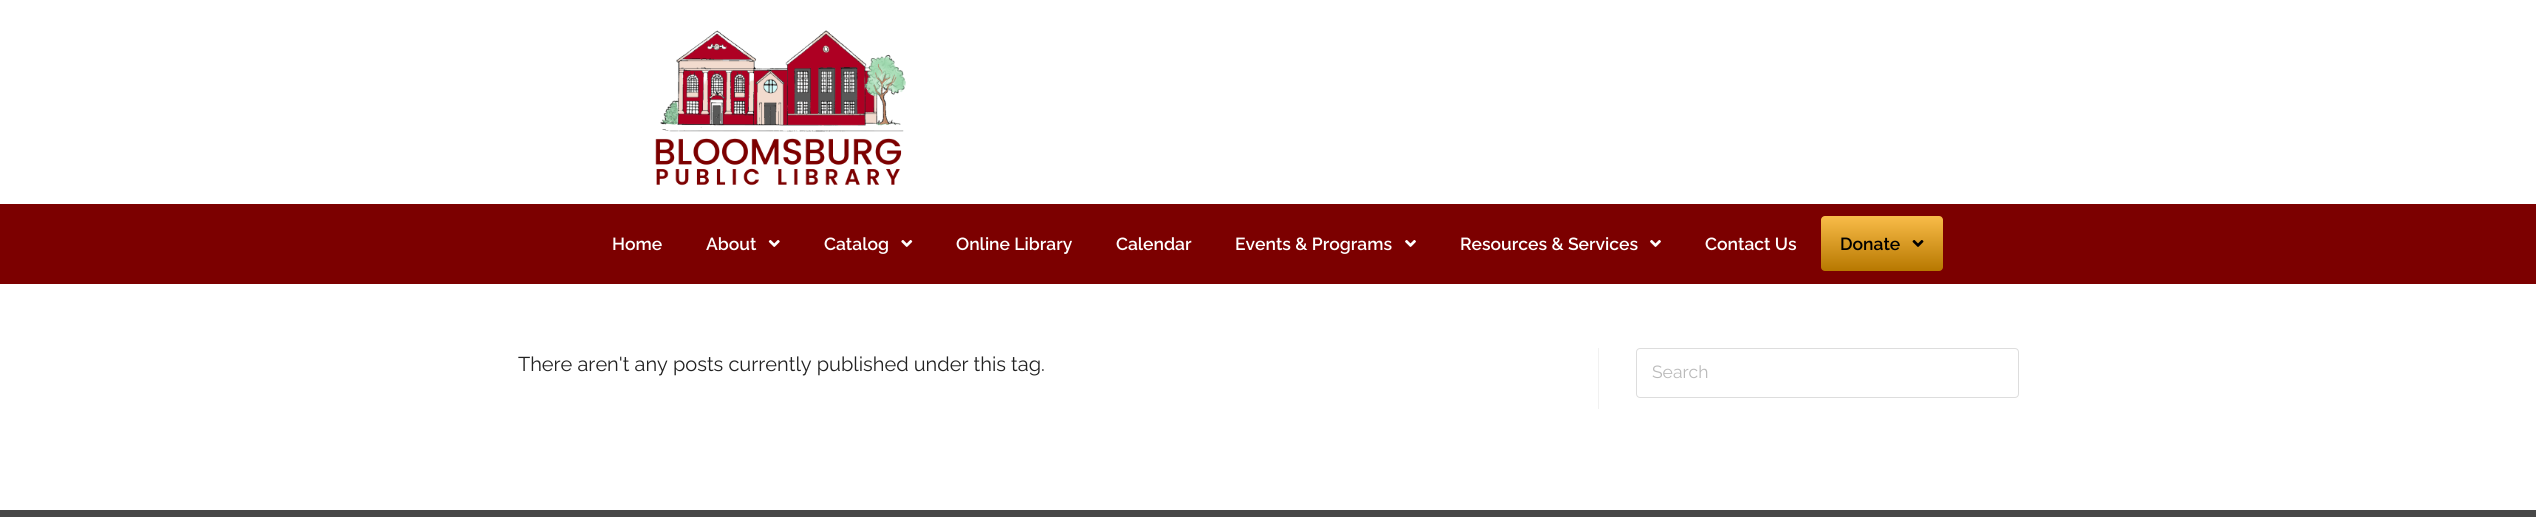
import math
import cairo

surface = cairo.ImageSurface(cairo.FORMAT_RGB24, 2536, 517)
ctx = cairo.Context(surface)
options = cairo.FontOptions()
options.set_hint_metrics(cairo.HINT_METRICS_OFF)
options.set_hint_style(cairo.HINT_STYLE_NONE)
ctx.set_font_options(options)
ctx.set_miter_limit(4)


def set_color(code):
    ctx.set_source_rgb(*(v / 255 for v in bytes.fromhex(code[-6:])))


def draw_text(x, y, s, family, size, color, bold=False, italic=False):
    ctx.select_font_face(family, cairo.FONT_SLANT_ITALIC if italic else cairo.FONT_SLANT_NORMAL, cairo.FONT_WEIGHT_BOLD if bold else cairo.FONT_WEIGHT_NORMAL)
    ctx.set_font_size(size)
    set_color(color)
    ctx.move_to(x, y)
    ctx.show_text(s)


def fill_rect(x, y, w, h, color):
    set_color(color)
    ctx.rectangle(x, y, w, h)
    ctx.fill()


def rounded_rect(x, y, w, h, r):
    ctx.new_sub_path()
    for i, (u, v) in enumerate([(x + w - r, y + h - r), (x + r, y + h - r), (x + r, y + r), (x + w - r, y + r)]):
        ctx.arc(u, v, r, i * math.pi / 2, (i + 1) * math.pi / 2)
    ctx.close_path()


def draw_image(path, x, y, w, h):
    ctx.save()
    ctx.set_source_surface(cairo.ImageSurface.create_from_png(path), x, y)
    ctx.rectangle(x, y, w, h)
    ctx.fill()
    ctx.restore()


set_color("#ffffff")
ctx.paint()
draw_image("assets/img1.png", 655, 30, 251, 156)
fill_rect(0, 204, 2536, 80, "#7c0000")
draw_text(612, 250, "Home", "Raleway SemiBold", 17.5, "#ffffff")
draw_text(706, 250, "About", "Raleway SemiBold", 17.5, "#ffffff")
draw_image("assets/img2.png", 768, 240, 12, 7)
draw_text(824, 250, "Catalog", "Raleway SemiBold", 17.5, "#ffffff")
draw_image("assets/img3.png", 901, 240, 12, 7)
draw_text(956, 250, "Online Library", "Raleway SemiBold", 17.5, "#ffffff")
draw_text(1116, 250, "Calendar", "Raleway SemiBold", 17.5, "#ffffff")
draw_text(1235, 250, "Events & Programs", "Raleway SemiBold", 17.5, "#ffffff")
draw_image("assets/img4.png", 1405, 240, 11, 7)
draw_text(1460, 250, "Resources & Services", "Raleway SemiBold", 17.5, "#ffffff")
draw_image("assets/img4.png", 1650, 240, 11, 7)
draw_text(1705, 250, "Contact Us", "Raleway SemiBold", 17.5, "#ffffff")
gradient = cairo.LinearGradient(1882, 216, 1882, 271)
gradient.add_color_stop_rgba(0, 0.976, 0.737, 0.286, 1)
gradient.add_color_stop_rgba(1, 0.718, 0.471, 0, 1)
ctx.set_source(gradient)
rounded_rect(1821, 216, 122, 55, 4)
ctx.fill()
draw_text(1840, 250, "Donate", "Raleway SemiBold", 17.5, "#000000")
draw_image("assets/img5.png", 1912, 240, 12, 7)
fill_rect(1598, 348, 1, 61, "#f1f1f1")
draw_text(518, 371, "There aren't any posts currently published under this tag.", "Raleway", 20, "#222222")
rounded_rect(1636.5, 348.5, 382, 49, 3.5)
set_color("#dddddd")
ctx.set_line_width(1)
ctx.stroke()
draw_text(1652, 378, "Search", "Raleway", 17.5, "#bababa")
fill_rect(0, 510, 2536, 7, "#484848")
surface.write_to_png("output.png")
